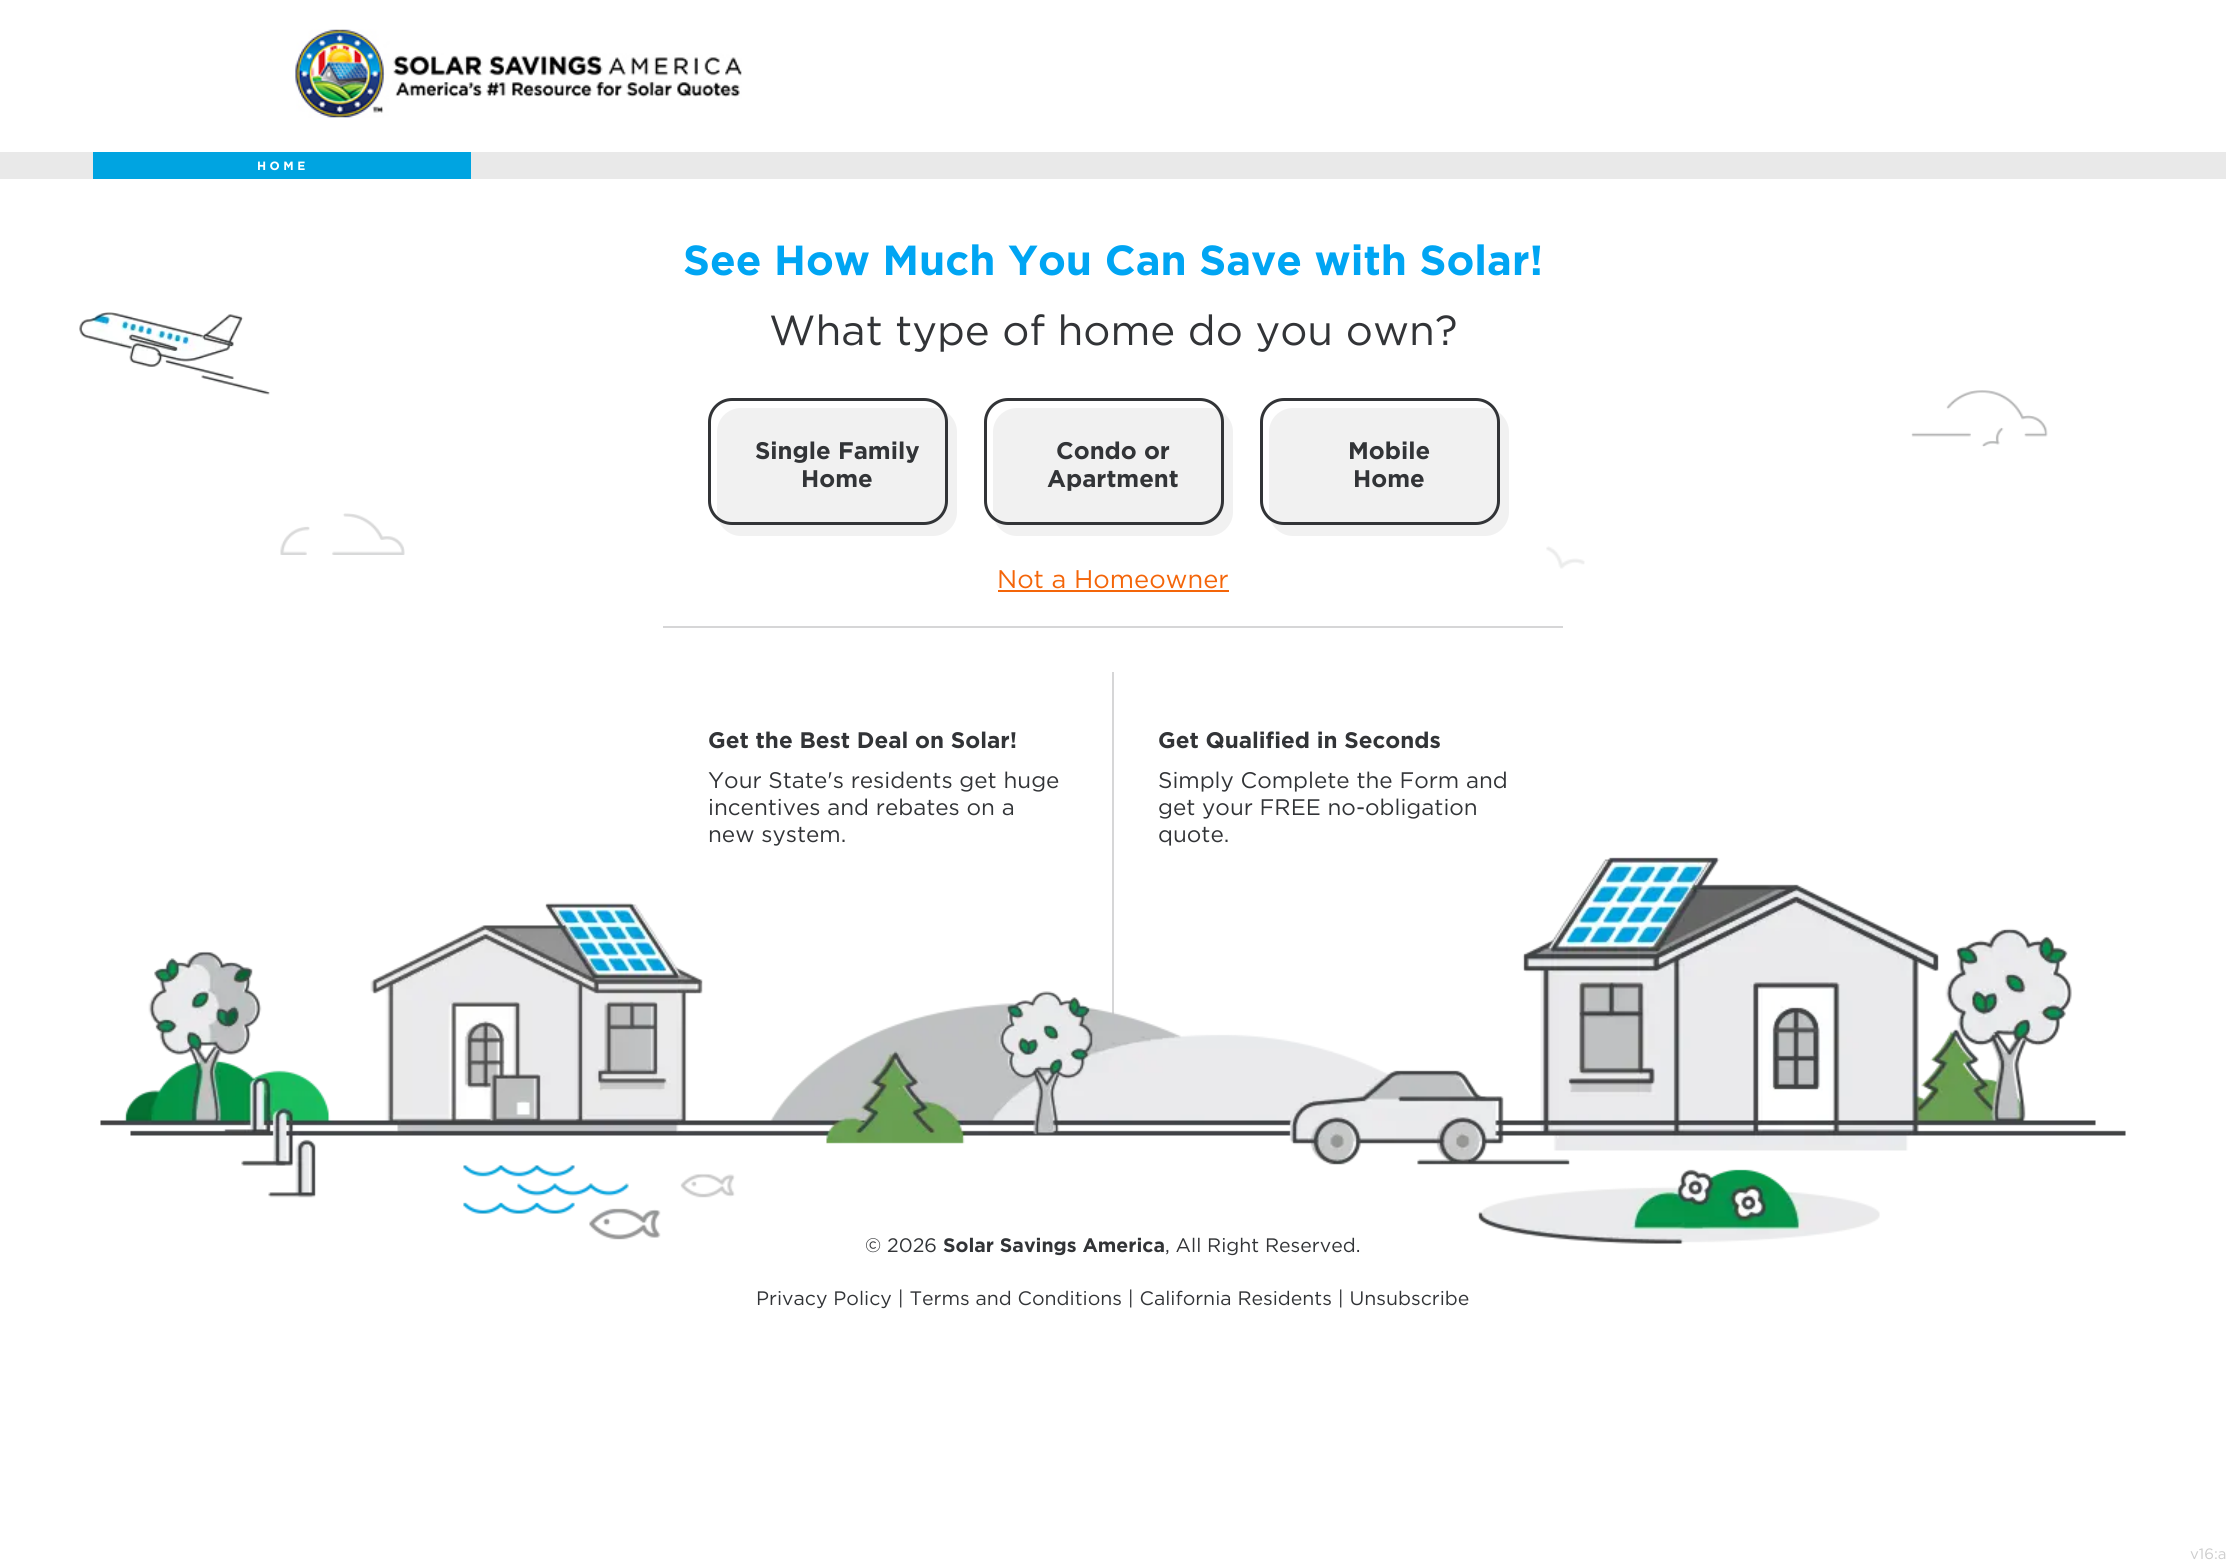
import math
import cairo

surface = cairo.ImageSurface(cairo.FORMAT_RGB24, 2226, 1562)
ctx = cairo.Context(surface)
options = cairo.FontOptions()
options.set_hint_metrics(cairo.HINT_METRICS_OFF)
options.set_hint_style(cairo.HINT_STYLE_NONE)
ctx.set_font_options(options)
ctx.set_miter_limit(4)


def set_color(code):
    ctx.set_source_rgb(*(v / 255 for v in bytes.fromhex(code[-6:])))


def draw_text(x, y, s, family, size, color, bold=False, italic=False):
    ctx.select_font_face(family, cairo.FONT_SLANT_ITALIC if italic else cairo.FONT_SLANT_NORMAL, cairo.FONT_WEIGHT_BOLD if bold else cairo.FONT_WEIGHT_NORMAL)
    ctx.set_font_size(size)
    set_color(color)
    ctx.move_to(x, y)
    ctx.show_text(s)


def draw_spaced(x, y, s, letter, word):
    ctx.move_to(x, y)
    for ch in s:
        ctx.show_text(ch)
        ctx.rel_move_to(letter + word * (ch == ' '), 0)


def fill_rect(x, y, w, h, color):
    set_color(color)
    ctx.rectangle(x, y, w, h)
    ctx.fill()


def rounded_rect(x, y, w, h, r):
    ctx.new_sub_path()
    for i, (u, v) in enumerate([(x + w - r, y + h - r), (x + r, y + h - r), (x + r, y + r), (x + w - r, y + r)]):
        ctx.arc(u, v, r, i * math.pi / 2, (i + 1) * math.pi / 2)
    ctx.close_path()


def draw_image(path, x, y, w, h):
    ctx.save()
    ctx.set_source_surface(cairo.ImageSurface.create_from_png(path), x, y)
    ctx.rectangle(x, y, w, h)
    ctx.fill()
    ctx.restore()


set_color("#ffffff")
ctx.paint()
draw_image("assets/img1.png", 295, 29, 447, 89)
fill_rect(0, 152, 2226, 27, "#e9e9e9")
fill_rect(93, 152, 378, 27, "#00a4e1")
ctx.select_font_face("Gotham", cairo.FONT_SLANT_NORMAL, cairo.FONT_WEIGHT_BOLD)
ctx.set_font_size(12)
set_color("#ffffff")
draw_spaced(257, 170, "HOME", 3.5, 0)
draw_image("assets/img2.png", 79, 312, 191, 83)
draw_text(683, 275, "See How Much You Can Save with Solar!", "Gotham", 42, "#00a5f3", bold=True)
draw_text(769, 345, "What type of home do you own?", "Gotham", 42, "#323437")
set_color("#f1f1f1")
rounded_rect(717, 408, 240, 128, 24)
ctx.fill()
rounded_rect(709.5, 399.5, 237, 124, 22.5)
set_color("#323437")
ctx.set_line_width(3)
ctx.stroke()
draw_text(755, 459, "Single Family", "Gotham", 24, "#323437", bold=True)
draw_text(801, 487, "Home", "Gotham", 24, "#323437", bold=True)
set_color("#f1f1f1")
rounded_rect(993, 408, 240, 128, 24)
ctx.fill()
rounded_rect(985.5, 399.5, 237, 124, 22.5)
set_color("#323437")
ctx.stroke()
draw_text(1056, 459, "Condo or", "Gotham", 24, "#323437", bold=True)
draw_text(1047, 487, "Apartment", "Gotham", 24, "#323437", bold=True)
set_color("#f1f1f1")
rounded_rect(1269, 408, 240, 128, 24)
ctx.fill()
rounded_rect(1261.5, 399.5, 237, 124, 22.5)
set_color("#323437")
ctx.stroke()
draw_text(1348, 459, "Mobile", "Gotham", 24, "#323437", bold=True)
draw_text(1353, 487, "Home", "Gotham", 24, "#323437", bold=True)
draw_text(997, 588, "Not a Homeowner", "Gotham", 25.5, "#f46509")
fill_rect(998, 590, 231, 2, "#f46509")
draw_image("assets/img3.png", 1911, 390, 137, 57)
draw_image("assets/img4.png", 280, 513, 125, 42)
draw_image("assets/img5.png", 1546, 546, 39, 23)
fill_rect(663, 626, 900, 2, "#d6d6d7")
fill_rect(1112, 672, 2, 343, "#d6d6d7")
draw_text(708, 748, "Get the Best Deal on Solar!", "Gotham", 22.5, "#323437", bold=True)
draw_text(708, 788, "Your State's residents get huge", "Gotham", 22.5, "#323437")
draw_text(708, 815, "incentives and rebates on a", "Gotham", 22.5, "#323437")
draw_text(708, 842, "new system.", "Gotham", 22.5, "#323437")
draw_text(1158, 748, "Get Qualified in Seconds", "Gotham", 22.5, "#323437", bold=True)
draw_text(1158, 788, "Simply Complete the Form and", "Gotham", 22.5, "#323437")
draw_text(1158, 815, "get your FREE no-obligation", "Gotham", 22.5, "#323437")
draw_text(1158, 842, "quote.", "Gotham", 22.5, "#323437")
draw_text(865, 1252, "© 2026", "Gotham", 19.5, "#323437")
draw_text(943, 1252, "Solar Savings America", "Gotham", 19.5, "#323437", bold=True)
draw_text(1165, 1252, ", All Right Reserved.", "Gotham", 19.5, "#323437")
draw_image("assets/img6.png", 100, 857, 2026, 387)
draw_text(756, 1305, "Privacy Policy | Terms and Conditions | California Residents | Unsubscribe", "Gotham", 19.5, "#323437")
draw_text(2190, 1559, "v16:a", "Gotham", 15, "#cccccc")
surface.write_to_png("output.png")
